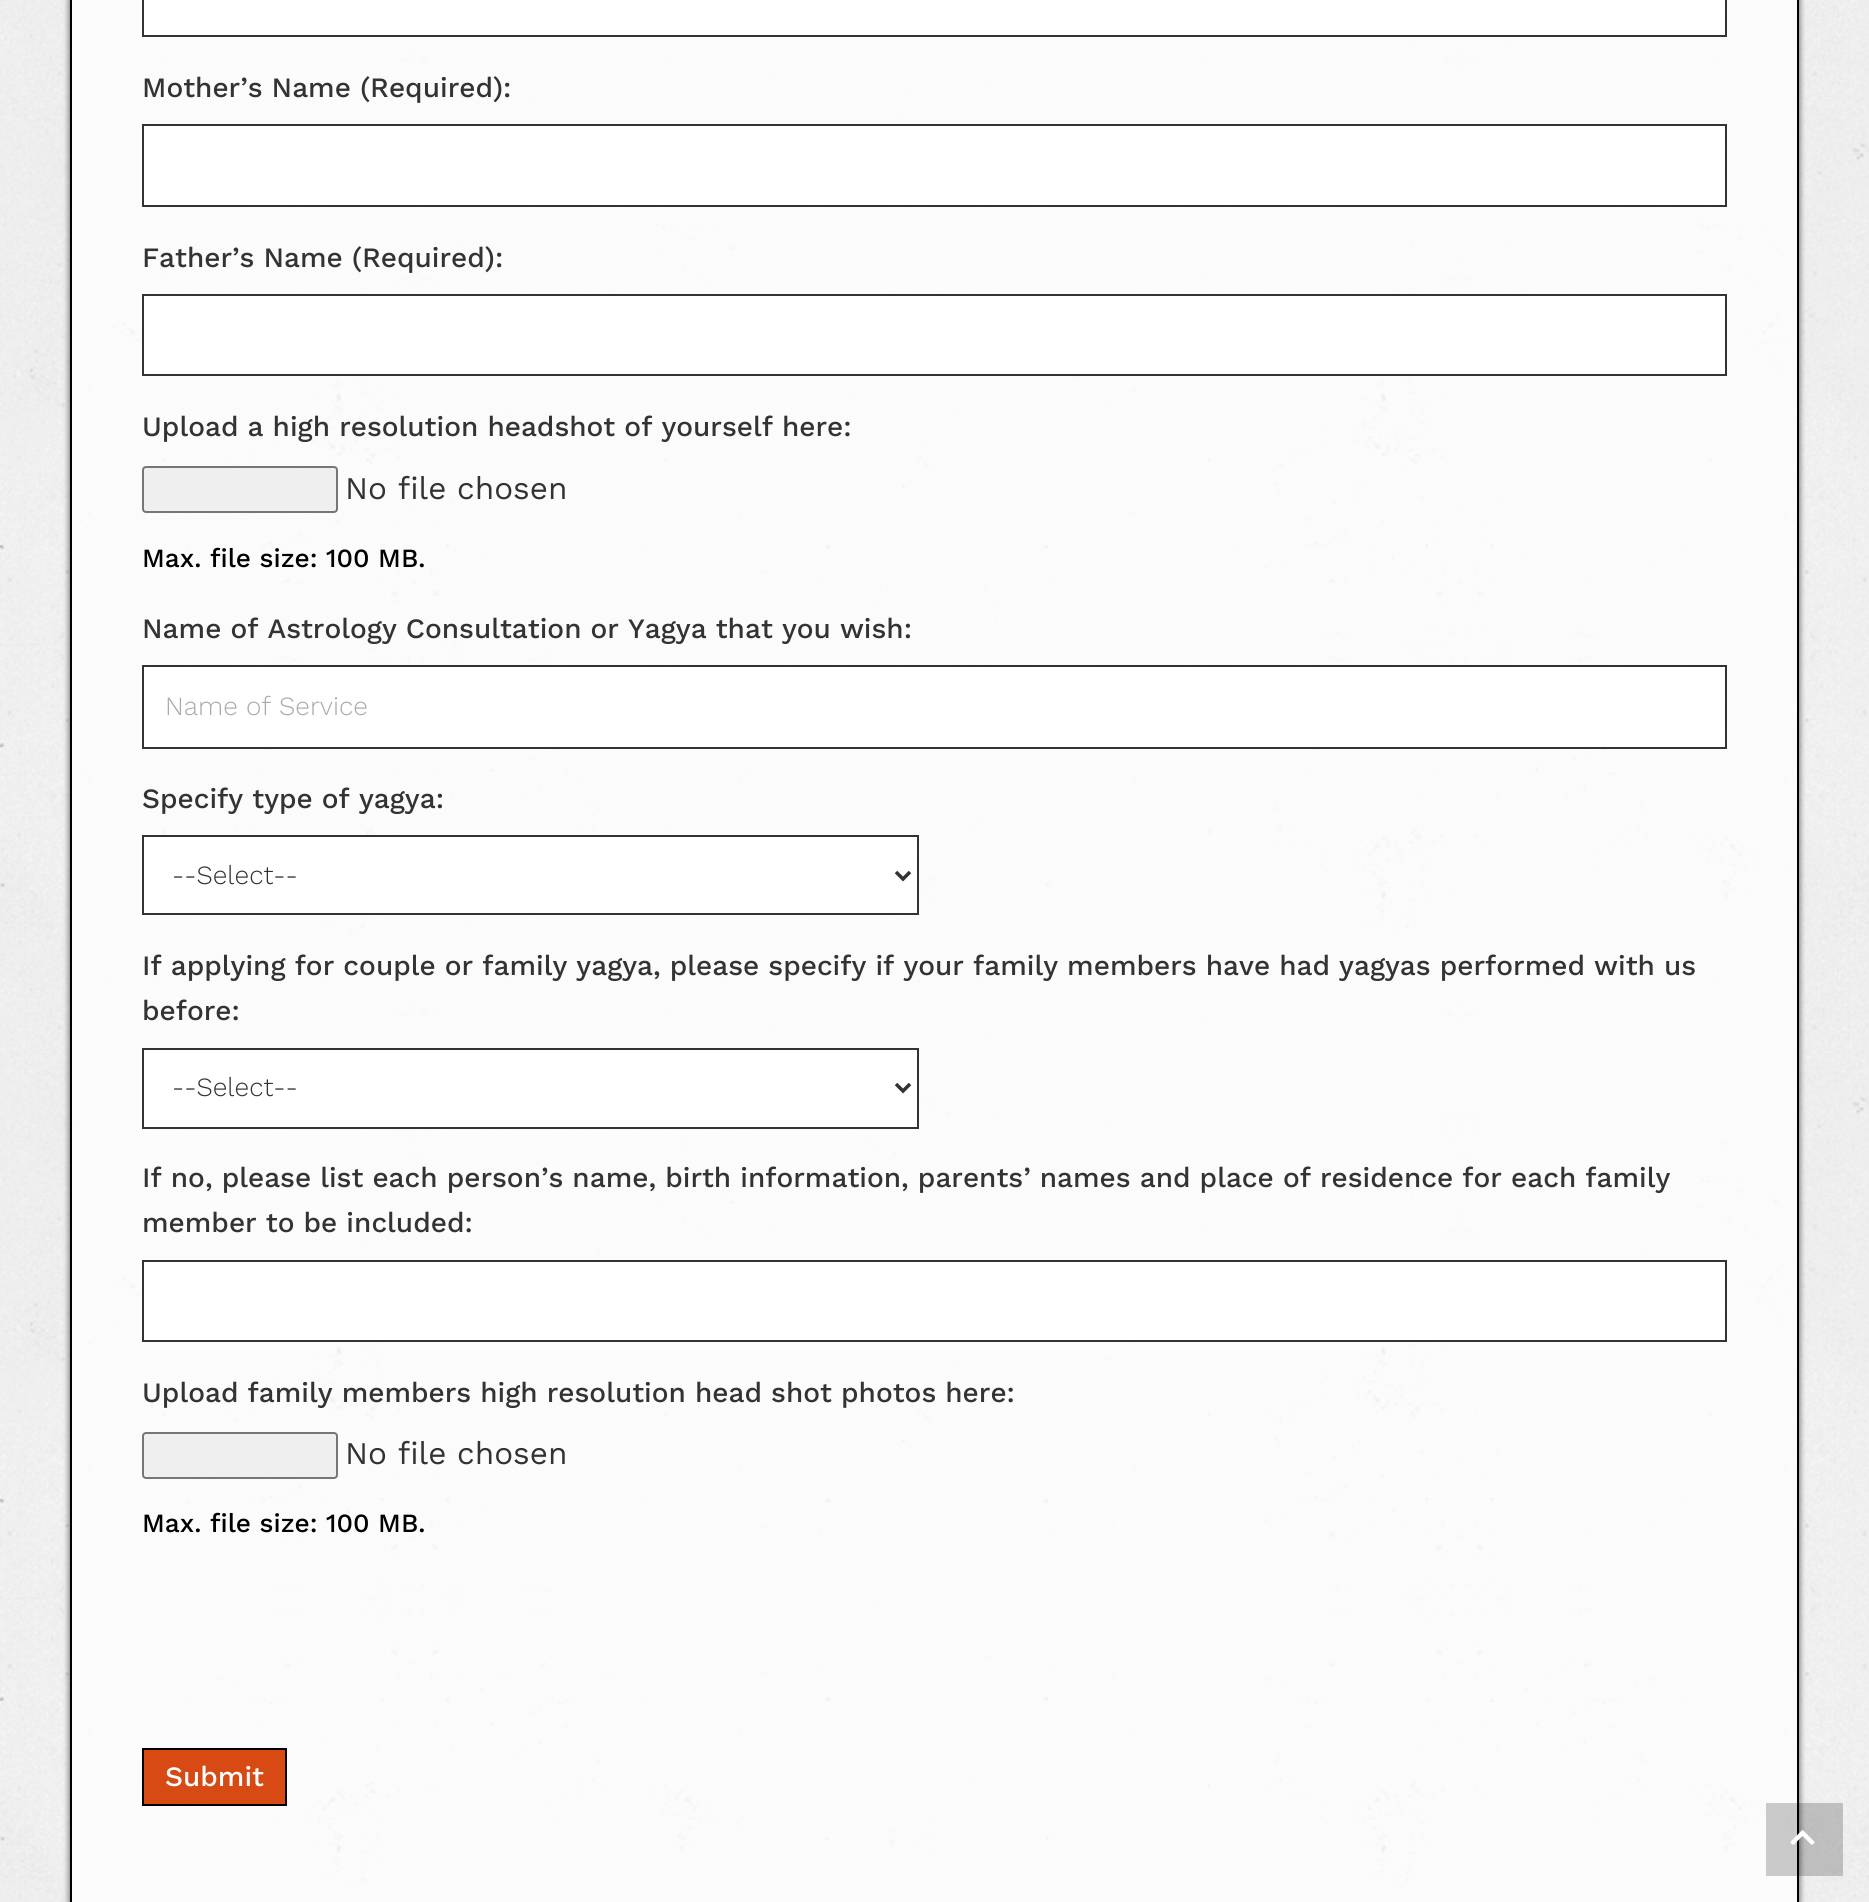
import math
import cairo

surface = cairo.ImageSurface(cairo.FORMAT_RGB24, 1869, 1902)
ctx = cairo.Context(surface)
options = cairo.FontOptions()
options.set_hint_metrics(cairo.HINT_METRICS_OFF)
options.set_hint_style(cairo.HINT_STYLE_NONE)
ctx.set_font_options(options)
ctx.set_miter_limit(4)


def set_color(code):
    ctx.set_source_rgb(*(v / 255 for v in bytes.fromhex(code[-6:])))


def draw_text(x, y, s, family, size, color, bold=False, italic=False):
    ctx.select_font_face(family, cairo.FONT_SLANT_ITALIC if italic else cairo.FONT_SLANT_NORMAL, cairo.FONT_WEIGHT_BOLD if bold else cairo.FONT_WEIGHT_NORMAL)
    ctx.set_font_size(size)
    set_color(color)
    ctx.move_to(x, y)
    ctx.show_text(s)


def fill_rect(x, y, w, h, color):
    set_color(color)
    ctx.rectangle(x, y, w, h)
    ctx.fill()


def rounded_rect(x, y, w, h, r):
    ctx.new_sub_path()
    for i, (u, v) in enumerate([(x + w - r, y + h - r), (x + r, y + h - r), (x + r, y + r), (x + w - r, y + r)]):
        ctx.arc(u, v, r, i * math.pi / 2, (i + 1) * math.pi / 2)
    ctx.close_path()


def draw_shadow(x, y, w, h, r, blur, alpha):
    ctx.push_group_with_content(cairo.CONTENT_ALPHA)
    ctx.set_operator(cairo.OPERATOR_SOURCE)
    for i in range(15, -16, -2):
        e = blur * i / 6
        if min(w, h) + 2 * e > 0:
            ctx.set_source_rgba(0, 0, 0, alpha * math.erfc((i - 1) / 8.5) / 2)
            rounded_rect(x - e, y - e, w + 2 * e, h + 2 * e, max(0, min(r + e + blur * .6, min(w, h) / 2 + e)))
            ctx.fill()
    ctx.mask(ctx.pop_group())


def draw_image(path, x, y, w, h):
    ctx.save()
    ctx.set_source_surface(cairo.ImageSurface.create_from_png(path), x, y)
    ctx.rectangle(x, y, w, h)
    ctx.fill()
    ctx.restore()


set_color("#f7f7f7")
ctx.paint()
fill_rect(72, 0, 1725, 1902, "#fdfdfd")
draw_image("assets/img1.png", 0, 0, 1869, 1902)
ctx.save()
ctx.set_fill_rule(cairo.FILL_RULE_EVEN_ODD)
ctx.new_path()
ctx.move_to(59, 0)
ctx.line_to(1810, 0)
ctx.line_to(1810, 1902)
ctx.line_to(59, 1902)
ctx.close_path()
ctx.move_to(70, -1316)
ctx.line_to(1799, -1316)
ctx.line_to(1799, 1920)
ctx.line_to(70, 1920)
ctx.close_path()
ctx.clip()
set_color("#000000")
draw_shadow(68, -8, 1733, 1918, 0, 2.5, 0.4)
ctx.restore()
ctx.rectangle(71, -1, 1727, 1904)
set_color("#000000")
ctx.stroke()
set_color("#ffffff")
ctx.rectangle(143, -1, 1583, 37)
ctx.fill_preserve()
set_color("#333333")
ctx.stroke()
draw_text(142, 97, "Mother’s Name (Required):", "Work Sans Medium", 28, "#333333")
set_color("#ffffff")
ctx.rectangle(143, 125, 1583, 81)
ctx.fill_preserve()
set_color("#333333")
ctx.stroke()
draw_text(142, 267, "Father’s Name (Required):", "Work Sans Medium", 28, "#333333")
set_color("#ffffff")
ctx.rectangle(143, 295, 1583, 80)
ctx.fill_preserve()
set_color("#333333")
ctx.stroke()
draw_text(142, 436, "Upload a high resolution headshot of yourself here:", "Work Sans Medium", 28, "#333333")
set_color("#efefef")
rounded_rect(143, 467, 194, 45, 3)
ctx.fill_preserve()
set_color("#767676")
ctx.stroke()
draw_text(345, 499, "No file chosen", "Work Sans", 31.5, "#333333")
draw_text(142, 567, "Max. file size: 100 MB.", "Work Sans Medium", 26.25, "#000000")
draw_text(142, 638, "Name of Astrology Consultation or Yagya that you wish:", "Work Sans Medium", 28, "#333333")
set_color("#ffffff")
ctx.rectangle(143, 666, 1583, 82)
ctx.fill_preserve()
set_color("#333333")
ctx.stroke()
draw_text(165, 715, "Name of Service", "Work Sans Light", 26.25, "#aaaaaa")
draw_text(142, 808, "Specify type of yagya:", "Work Sans Medium", 28, "#333333")
set_color("#ffffff")
ctx.rectangle(143, 836, 775, 78)
ctx.fill_preserve()
set_color("#333333")
ctx.stroke()
ctx.new_path()
ctx.move_to(896, 872)
ctx.line_to(903, 879)
ctx.line_to(910, 872)
ctx.set_line_width(3.5)
ctx.stroke()
draw_text(172, 884, "--Select--", "Work Sans Light", 26.25, "#333333")
draw_text(142, 975, "If applying for couple or family yagya, please specify if your family members have had yagyas performed with us", "Work Sans Medium", 28, "#333333")
draw_text(142, 1020, "before:", "Work Sans Medium", 28, "#333333")
set_color("#ffffff")
ctx.rectangle(143, 1049, 775, 79)
ctx.fill_preserve()
set_color("#333333")
ctx.set_line_width(2)
ctx.stroke()
ctx.new_path()
ctx.move_to(896, 1084)
ctx.line_to(903, 1091)
ctx.line_to(910, 1084)
ctx.set_line_width(3.5)
ctx.stroke()
draw_text(172, 1096, "--Select--", "Work Sans Light", 26.25, "#333333")
draw_text(142, 1187, "If no, please list each person’s name, birth information, parents’ names and place of residence for each family", "Work Sans Medium", 28, "#333333")
draw_text(142, 1232, "member to be included:", "Work Sans Medium", 28, "#333333")
set_color("#ffffff")
ctx.rectangle(143, 1261, 1583, 80)
ctx.fill_preserve()
set_color("#333333")
ctx.set_line_width(2)
ctx.stroke()
draw_text(142, 1402, "Upload family members high resolution head shot photos here:", "Work Sans Medium", 28, "#333333")
set_color("#efefef")
rounded_rect(143, 1433, 194, 45, 3)
ctx.fill_preserve()
set_color("#767676")
ctx.stroke()
draw_text(345, 1464, "No file chosen", "Work Sans", 31.5, "#333333")
draw_text(142, 1532, "Max. file size: 100 MB.", "Work Sans Medium", 26.25, "#000000")
set_color("#d74a14")
ctx.rectangle(143, 1749, 143, 56)
ctx.fill_preserve()
set_color("#000000")
ctx.stroke()
draw_text(165, 1786, "Submit", "Work Sans Medium", 28, "#ffffff")
ctx.set_source_rgba(0, 0, 0, 0.2)
ctx.rectangle(1766, 1803, 77, 73)
ctx.fill()
draw_image("assets/img2.png", 1790, 1830, 25, 15)
surface.write_to_png("output.png")
